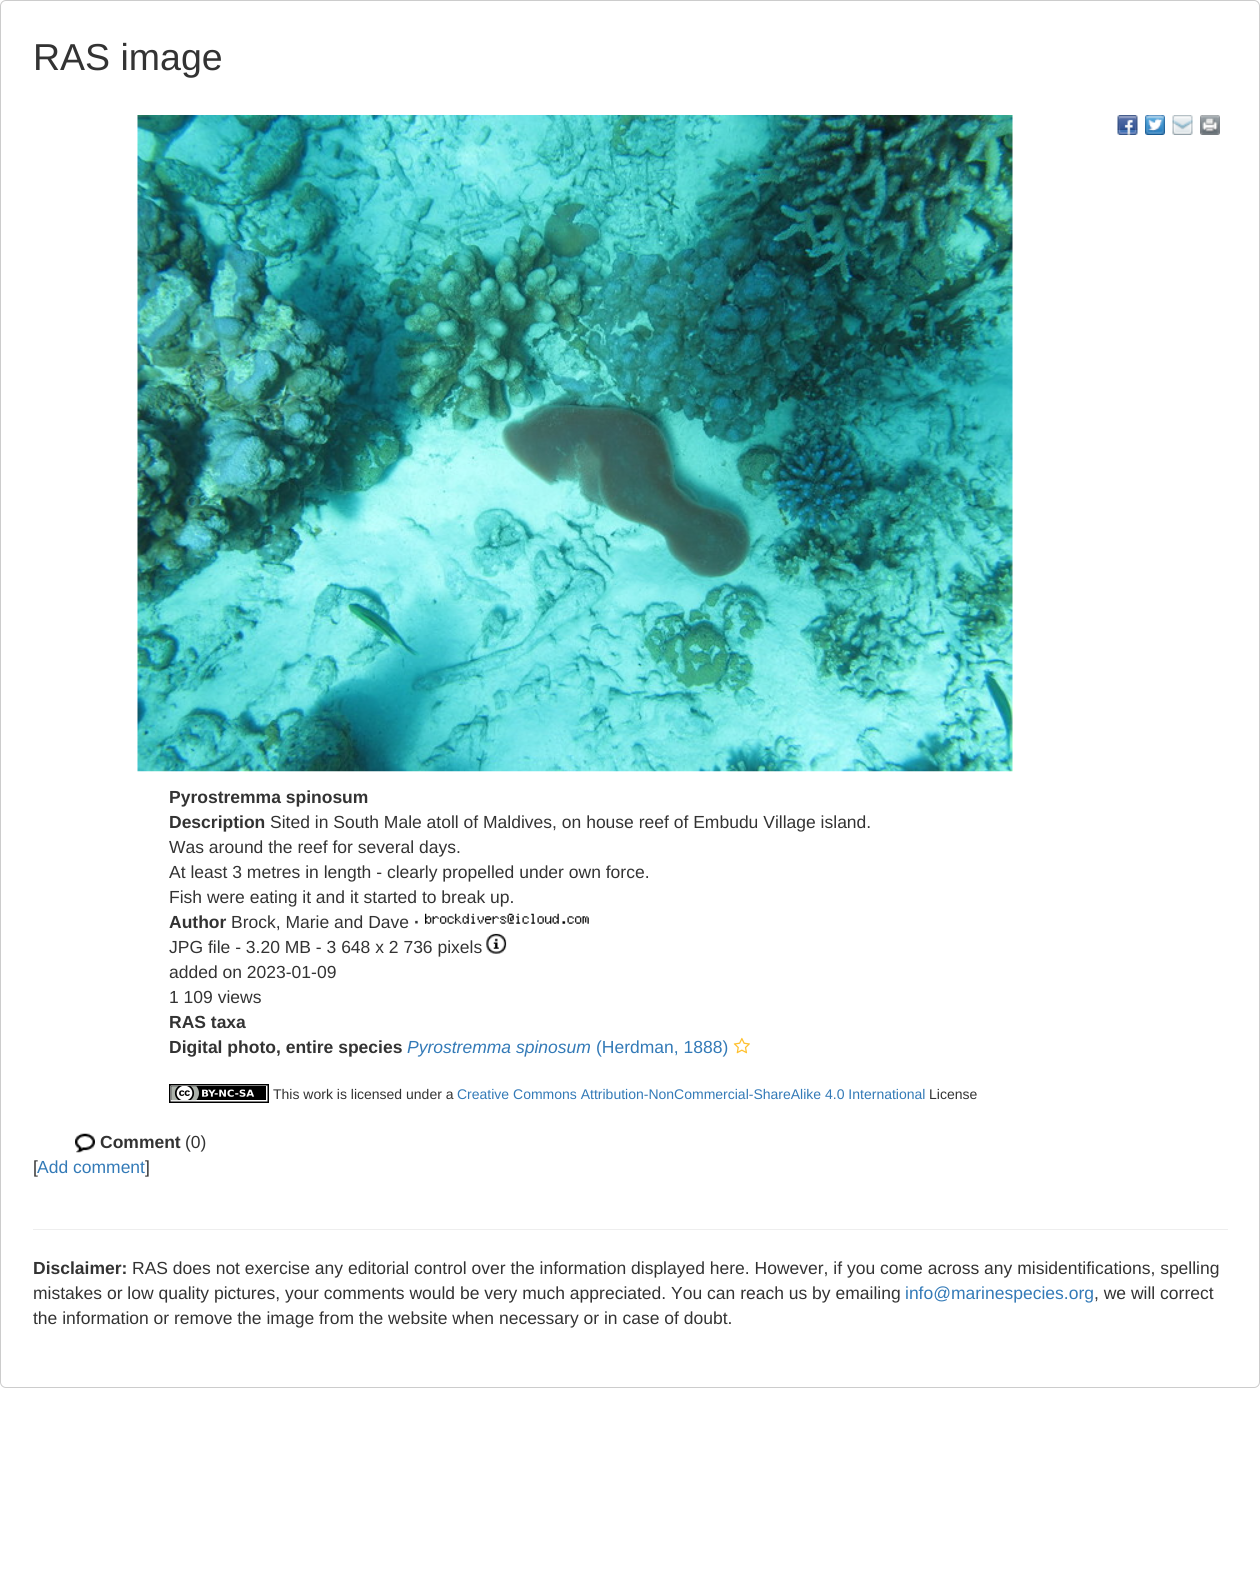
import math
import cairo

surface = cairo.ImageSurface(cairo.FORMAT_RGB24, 1260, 1595)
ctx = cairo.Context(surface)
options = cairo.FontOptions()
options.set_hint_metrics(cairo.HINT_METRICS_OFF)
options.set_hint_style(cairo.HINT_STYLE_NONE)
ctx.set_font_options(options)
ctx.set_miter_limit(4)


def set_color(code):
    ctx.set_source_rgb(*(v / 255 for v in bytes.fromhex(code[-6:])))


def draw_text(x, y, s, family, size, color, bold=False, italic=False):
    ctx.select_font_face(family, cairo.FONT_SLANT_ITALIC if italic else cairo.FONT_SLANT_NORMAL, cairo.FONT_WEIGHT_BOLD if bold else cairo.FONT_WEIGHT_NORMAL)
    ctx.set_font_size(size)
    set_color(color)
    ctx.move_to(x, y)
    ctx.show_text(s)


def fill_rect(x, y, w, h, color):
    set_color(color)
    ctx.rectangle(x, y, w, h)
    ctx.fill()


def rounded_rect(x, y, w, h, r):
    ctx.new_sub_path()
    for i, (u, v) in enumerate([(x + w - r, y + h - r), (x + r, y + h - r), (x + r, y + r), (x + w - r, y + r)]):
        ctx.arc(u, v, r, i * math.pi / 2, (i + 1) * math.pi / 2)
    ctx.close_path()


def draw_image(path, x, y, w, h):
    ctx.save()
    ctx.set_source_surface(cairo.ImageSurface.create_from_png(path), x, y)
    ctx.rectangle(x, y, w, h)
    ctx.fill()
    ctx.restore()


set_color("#ffffff")
ctx.paint()
rounded_rect(0.5, 0.5, 1259, 1387, 5.5)
set_color("#cccccc")
ctx.set_line_width(1)
ctx.stroke()
draw_text(33, 70, "RAS image", "Liberation Sans", 37.5, "#333333")
draw_image("assets/img1.png", 1117, 115, 21, 20)
draw_image("assets/img2.png", 1145, 115, 20, 20)
draw_image("assets/img3.png", 1172, 115, 21, 20)
draw_image("assets/img4.png", 1200, 115, 20, 20)
draw_image("assets/img5.png", 137, 115, 876, 657)
draw_text(169, 803, "Pyrostremma spinosum", "Liberation Sans", 17.5, "#333333", bold=True)
draw_text(169, 828, "Description", "Liberation Sans", 17.5, "#333333", bold=True)
draw_text(270, 828, "Sited in South Male atoll of Maldives, on house reef of Embudu Village island.", "Liberation Sans", 17.5, "#333333")
draw_text(169, 853, "Was around the reef for several days.", "Liberation Sans", 17.5, "#333333")
draw_text(169, 878, "At least 3 metres in length - clearly propelled under own force.", "Liberation Sans", 17.5, "#333333")
draw_text(169, 903, "Fish were eating it and it started to break up.", "Liberation Sans", 17.5, "#333333")
draw_text(169, 928, "Author", "Liberation Sans", 17.5, "#333333", bold=True)
draw_text(231, 928, "Brock, Marie and Dave", "Liberation Sans", 17.5, "#333333")
draw_text(414, 928, "·", "Liberation Sans", 17.5, "#333333", bold=True)
draw_image("assets/img6.png", 425, 913, 164, 11)
draw_text(169, 953, "JPG file - 3.20 MB - 3 648 x 2 736 pixels", "Liberation Sans", 17.5, "#333333")
draw_image("assets/img7.png", 486, 933, 21, 21)
draw_text(169, 978, "added on 2023-01-09", "Liberation Sans", 17.5, "#333333")
draw_text(169, 1003, "1 109 views", "Liberation Sans", 17.5, "#333333")
draw_text(169, 1028, "RAS taxa", "Liberation Sans", 17.5, "#333333", bold=True)
draw_text(169, 1053, "Digital photo, entire species", "Liberation Sans", 17.5, "#333333", bold=True)
draw_text(407, 1053, "Pyrostremma spinosum", "Liberation Sans", 17.5, "#337ab7", italic=True)
draw_text(596, 1053, "(Herdman, 1888)", "Liberation Sans", 17.5, "#337ab7")
draw_image("assets/img8.png", 733, 1037, 17, 17)
draw_image("assets/img9.png", 169, 1084, 100, 19)
draw_text(273, 1099, "This work is licensed under a", "Liberation Sans", 14, "#333333")
draw_text(457, 1099, "Creative Commons Attribution-NonCommercial-ShareAlike 4.0 International", "Liberation Sans", 14, "#337ab7")
draw_text(929, 1099, "License", "Liberation Sans", 14, "#333333")
draw_image("assets/img10.png", 75, 1133, 20, 20)
draw_text(100, 1148, "Comment", "Liberation Sans", 17.5, "#333333", bold=True)
draw_text(185, 1148, "(0)", "Liberation Sans", 17.5, "#333333")
draw_text(33, 1173, "[", "Liberation Sans", 17.5, "#333333")
draw_text(37, 1173, "Add comment", "Liberation Sans", 17.5, "#337ab7")
draw_text(145, 1173, "]", "Liberation Sans", 17.5, "#333333")
fill_rect(33, 1229, 1195, 1, "#eeeeee")
draw_text(33, 1274, "Disclaimer:", "Liberation Sans", 17.5, "#333333", bold=True)
draw_text(132, 1274, "RAS does not exercise any editorial control over the information displayed here. However, if you come across any misidentifications, spelling", "Liberation Sans", 17.5, "#333333")
draw_text(33, 1299, "mistakes or low quality pictures, your comments would be very much appreciated. You can reach us by emailing", "Liberation Sans", 17.5, "#333333")
draw_text(905, 1299, "info@marinespecies.org", "Liberation Sans", 17.5, "#337ab7")
draw_text(1094, 1299, ", we will correct", "Liberation Sans", 17.5, "#333333")
draw_text(33, 1324, "the information or remove the image from the website when necessary or in case of doubt.", "Liberation Sans", 17.5, "#333333")
surface.write_to_png("output.png")
